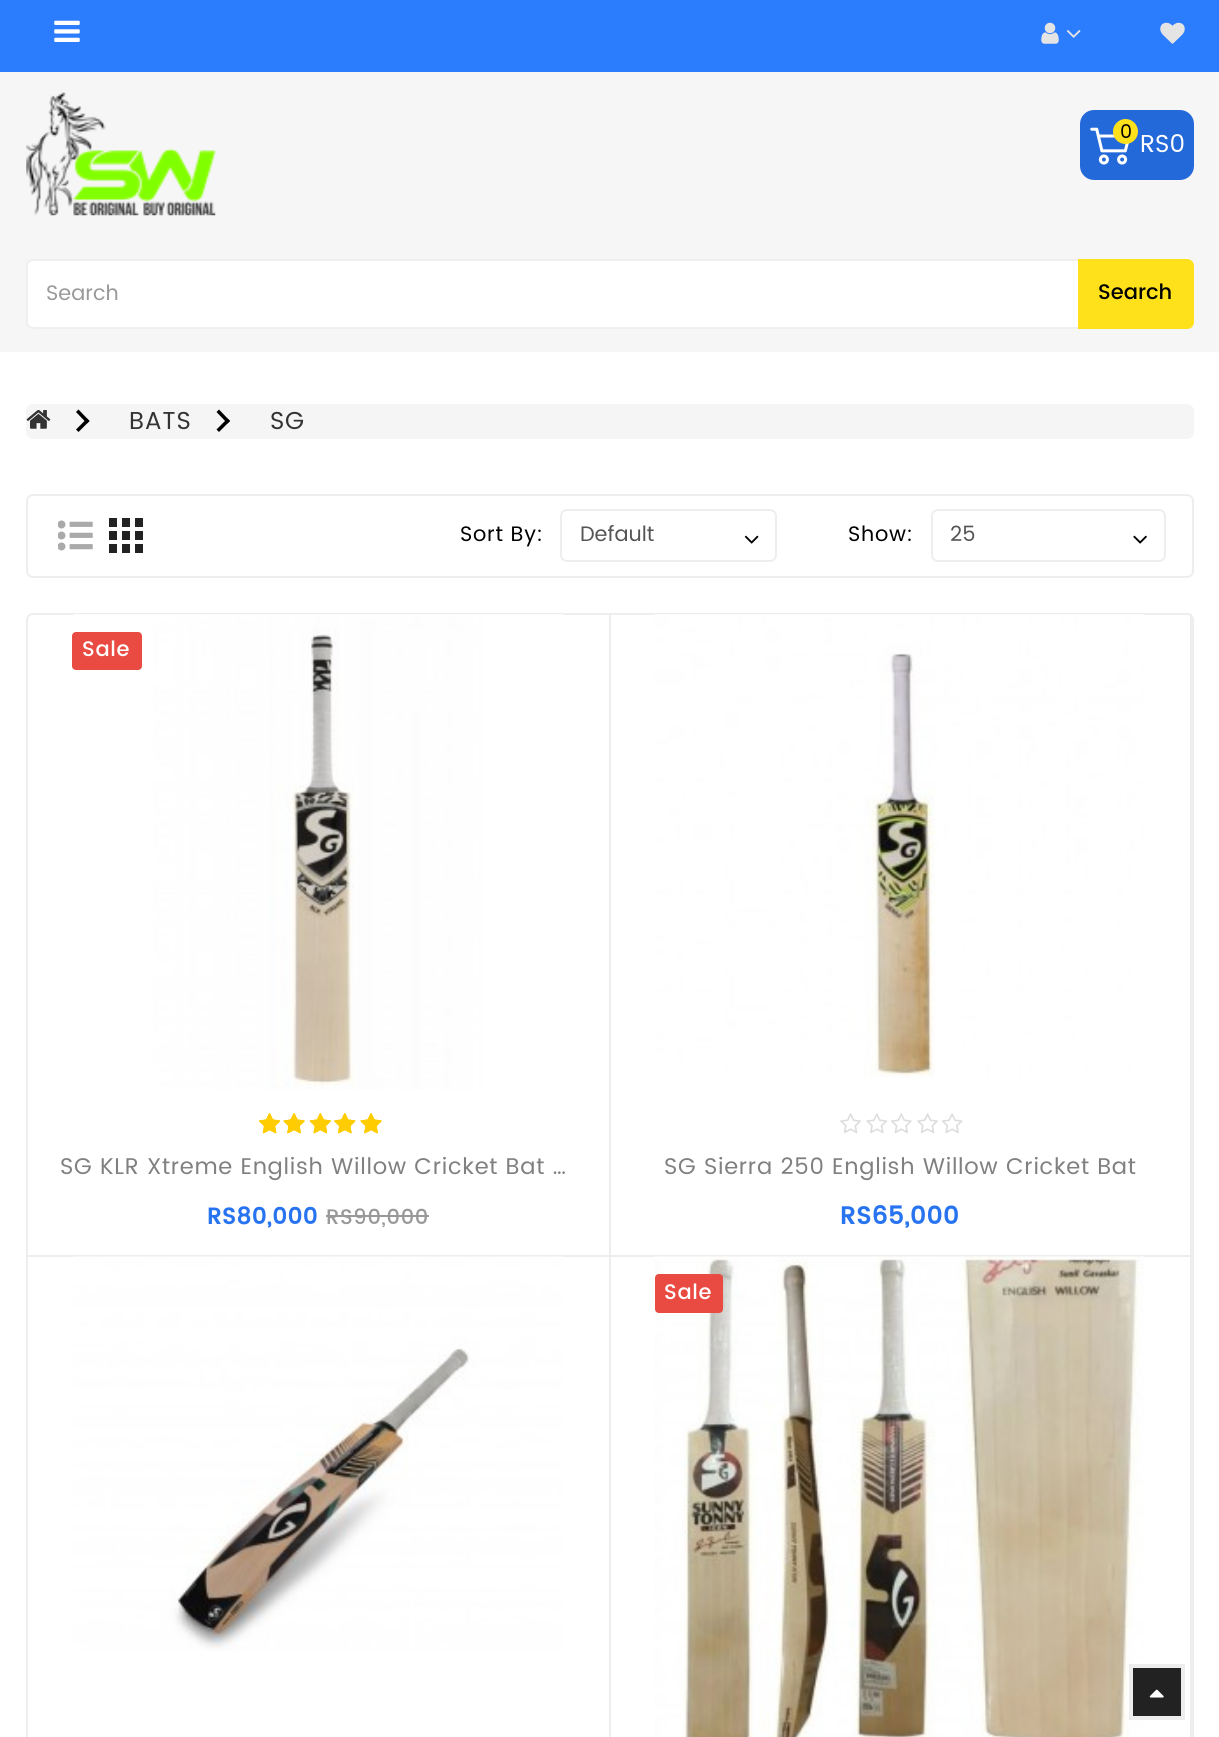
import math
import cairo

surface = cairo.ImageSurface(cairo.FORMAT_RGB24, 1219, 1737)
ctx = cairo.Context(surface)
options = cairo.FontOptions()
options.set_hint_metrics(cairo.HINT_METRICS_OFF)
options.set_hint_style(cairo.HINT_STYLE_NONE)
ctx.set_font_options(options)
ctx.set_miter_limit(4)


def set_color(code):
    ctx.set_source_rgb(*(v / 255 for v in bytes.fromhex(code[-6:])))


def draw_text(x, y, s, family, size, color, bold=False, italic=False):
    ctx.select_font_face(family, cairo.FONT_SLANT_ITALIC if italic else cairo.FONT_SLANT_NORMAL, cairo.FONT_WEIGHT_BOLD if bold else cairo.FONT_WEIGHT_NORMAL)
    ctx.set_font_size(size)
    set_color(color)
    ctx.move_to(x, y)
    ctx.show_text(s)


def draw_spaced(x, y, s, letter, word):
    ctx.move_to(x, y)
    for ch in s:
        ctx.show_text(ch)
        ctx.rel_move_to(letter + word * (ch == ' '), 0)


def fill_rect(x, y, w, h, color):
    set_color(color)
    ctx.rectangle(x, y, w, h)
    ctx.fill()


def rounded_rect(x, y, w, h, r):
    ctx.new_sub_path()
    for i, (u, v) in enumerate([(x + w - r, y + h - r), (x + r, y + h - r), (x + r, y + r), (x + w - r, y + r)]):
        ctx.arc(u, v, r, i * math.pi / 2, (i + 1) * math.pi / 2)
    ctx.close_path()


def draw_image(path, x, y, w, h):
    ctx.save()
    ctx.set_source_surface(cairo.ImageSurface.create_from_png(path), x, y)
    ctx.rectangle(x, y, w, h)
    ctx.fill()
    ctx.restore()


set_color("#ffffff")
ctx.paint()
fill_rect(0, 0, 1219, 72, "#2c7cfe")
draw_image("assets/img1.png", 1041, 22, 18, 22)
draw_image("assets/img2.png", 1066, 30, 15, 8)
draw_image("assets/img3.png", 1160, 22, 25, 22)
draw_image("assets/img4.png", 54, 20, 26, 22)
fill_rect(0, 72, 1219, 280, "#f6f6f6")
draw_image("assets/img5.png", 26, 92, 190, 124)
set_color("#2469d9")
rounded_rect(1080, 110, 114, 70, 14)
ctx.fill()
draw_image("assets/img6.png", 1090, 127, 39, 38)
set_color("#ffe11b")
ctx.arc(1125.5, 131.5, 12.5, 0, 2 * math.pi)
ctx.fill()
draw_text(1120, 138, "0", "Poppins", 19, "#000000")
draw_text(1140, 152, "RS0", "Poppins", 24.5, "#ffffff")
ctx.new_path()
ctx.move_to(33, 260)
ctx.line_to(1079, 260)
ctx.line_to(1079, 328)
ctx.line_to(33, 328)
ctx.curve_to(29.5, 328, 27, 325.5, 27, 322)
ctx.line_to(27, 266)
ctx.curve_to(27, 262.5, 29.5, 260, 33, 260)
ctx.close_path()
ctx.fill_preserve()
set_color("#efefef")
ctx.stroke()
draw_text(46, 300, "Search", "Poppins", 21, "#999999")
set_color("#ffe11b")
ctx.new_path()
ctx.move_to(1078, 259)
ctx.line_to(1187, 259)
ctx.curve_to(1191, 259, 1194, 262, 1194, 266)
ctx.line_to(1194, 322)
ctx.curve_to(1194, 326, 1191, 329, 1187, 329)
ctx.line_to(1078, 329)
ctx.close_path()
ctx.fill()
draw_text(1098, 299, "Search", "Poppins Medium", 21, "#000000")
set_color("#f5f5f5")
rounded_rect(26, 404, 1168, 35, 7)
ctx.fill()
draw_image("assets/img7.png", 26, 410, 25, 19)
set_color("#000000")
ctx.new_path()
ctx.move_to(76, 412)
ctx.line_to(78.5, 409.5)
ctx.line_to(89.5, 421)
ctx.line_to(87, 423.5)
ctx.close_path()
ctx.fill()
ctx.new_path()
ctx.move_to(76, 429.5)
ctx.line_to(87, 418.5)
ctx.line_to(89.5, 421)
ctx.line_to(78.5, 432)
ctx.close_path()
ctx.fill()
ctx.select_font_face("Poppins")
ctx.set_font_size(24.5)
set_color("#333333")
draw_spaced(129, 429, "BATS", 0.7, 0)
set_color("#000000")
ctx.new_path()
ctx.move_to(216.5, 412)
ctx.line_to(219, 409.5)
ctx.line_to(230, 421)
ctx.line_to(227.5, 423.5)
ctx.close_path()
ctx.fill()
ctx.new_path()
ctx.move_to(216.5, 429.5)
ctx.line_to(227.5, 418.5)
ctx.line_to(230, 421)
ctx.line_to(219, 432)
ctx.close_path()
ctx.fill()
set_color("#333333")
draw_spaced(270, 429, "SG", 0.7, 0)
rounded_rect(27, 495, 1166, 82, 6)
set_color("#eeeeee")
ctx.stroke()
draw_image("assets/img8.png", 58, 520, 35, 31)
draw_image("assets/img9.png", 109, 518, 34, 35)
ctx.set_font_size(21)
set_color("#000000")
draw_spaced(460, 541, "Sort By:", 0.7, 0)
rounded_rect(561, 510, 215, 51, 6)
set_color("#eeeeee")
ctx.stroke()
draw_text(580, 541, "Default", "Poppins", 21, "#555555")
draw_image("assets/img10.png", 744, 535, 15, 9)
set_color("#000000")
draw_spaced(848, 541, "Show:", 0.7, 0)
rounded_rect(932, 510, 233, 51, 6)
set_color("#eeeeee")
ctx.stroke()
draw_text(950, 541, "25", "Poppins", 21, "#555555")
draw_image("assets/img11.png", 1133, 535, 14, 9)
rounded_rect(27, 614, 1166, 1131, 6)
set_color("#eeeeee")
ctx.stroke()
fill_rect(609, 614, 2, 1123, "#eeeeee")
fill_rect(28, 1255, 583, 2, "#eeeeee")
draw_image("assets/img12.png", 73, 614, 491, 476)
set_color("#e94b42")
rounded_rect(72, 632, 70, 38, 4)
ctx.fill()
ctx.select_font_face("Poppins Medium")
set_color("#ffffff")
draw_spaced(82, 656, "Sale", 0.7, 0)
draw_image("assets/img13.png", 259, 1113, 21, 21)
draw_image("assets/img14.png", 259, 1113, 21, 21)
draw_image("assets/img15.png", 283, 1113, 22, 21)
draw_image("assets/img16.png", 283, 1113, 22, 21)
draw_image("assets/img17.png", 309, 1113, 22, 21)
draw_image("assets/img18.png", 309, 1113, 22, 21)
draw_image("assets/img19.png", 334, 1113, 22, 21)
draw_image("assets/img20.png", 334, 1113, 22, 21)
draw_image("assets/img15.png", 360, 1113, 22, 21)
draw_image("assets/img16.png", 360, 1113, 22, 21)
ctx.save()
ctx.rectangle(60, 1157, 518, 24)
ctx.clip()
ctx.select_font_face("Poppins")
ctx.set_font_size(22.75)
set_color("#808080")
draw_spaced(60, 1174, "SG KLR Xtreme English Willow Cricket Bat …", 0.7, 0)
ctx.restore()
ctx.select_font_face("Poppins", cairo.FONT_SLANT_NORMAL, cairo.FONT_WEIGHT_BOLD)
ctx.set_font_size(22.75)
set_color("#2874f0")
draw_spaced(207, 1224, "RS80,000", 0.7, 0)
ctx.select_font_face("Poppins Medium")
ctx.set_font_size(21)
set_color("#999999")
draw_spaced(326, 1224, "RS90,000", 0.7, 0)
fill_rect(326, 1215, 103, 2, "#999999")
fill_rect(1190, 614, 2, 1123, "#eeeeee")
fill_rect(611, 1255, 581, 2, "#eeeeee")
draw_image("assets/img21.png", 654, 614, 491, 464)
draw_image("assets/img22.png", 840, 1113, 21, 21)
draw_image("assets/img23.png", 866, 1113, 22, 21)
draw_image("assets/img24.png", 891, 1113, 21, 21)
draw_image("assets/img22.png", 917, 1113, 21, 21)
draw_image("assets/img25.png", 941, 1113, 22, 21)
ctx.save()
ctx.rectangle(642, 1157, 517, 24)
ctx.clip()
ctx.select_font_face("Poppins")
ctx.set_font_size(22.75)
set_color("#808080")
draw_spaced(664, 1174, "SG Sierra 250 English Willow Cricket Bat", 0.7, 0)
ctx.restore()
ctx.select_font_face("Poppins", cairo.FONT_SLANT_NORMAL, cairo.FONT_WEIGHT_BOLD)
ctx.set_font_size(24.5)
set_color("#2874f0")
draw_spaced(840, 1224, "RS65,000", 0.7, 0)
draw_image("assets/img26.png", 73, 1256, 491, 395)
draw_image("assets/img27.png", 654, 1256, 491, 481)
set_color("#e94b42")
rounded_rect(655, 1274, 68, 39, 4)
ctx.fill()
ctx.select_font_face("Poppins Medium")
ctx.set_font_size(21)
set_color("#ffffff")
draw_spaced(664, 1299, "Sale", 0.7, 0)
set_color("#222222")
ctx.rectangle(1131, 1666, 52, 52)
ctx.fill_preserve()
set_color("#ededed")
ctx.set_line_width(4)
ctx.stroke()
draw_image("assets/img28.png", 1149, 1689, 15, 9)
surface.write_to_png("output.png")
